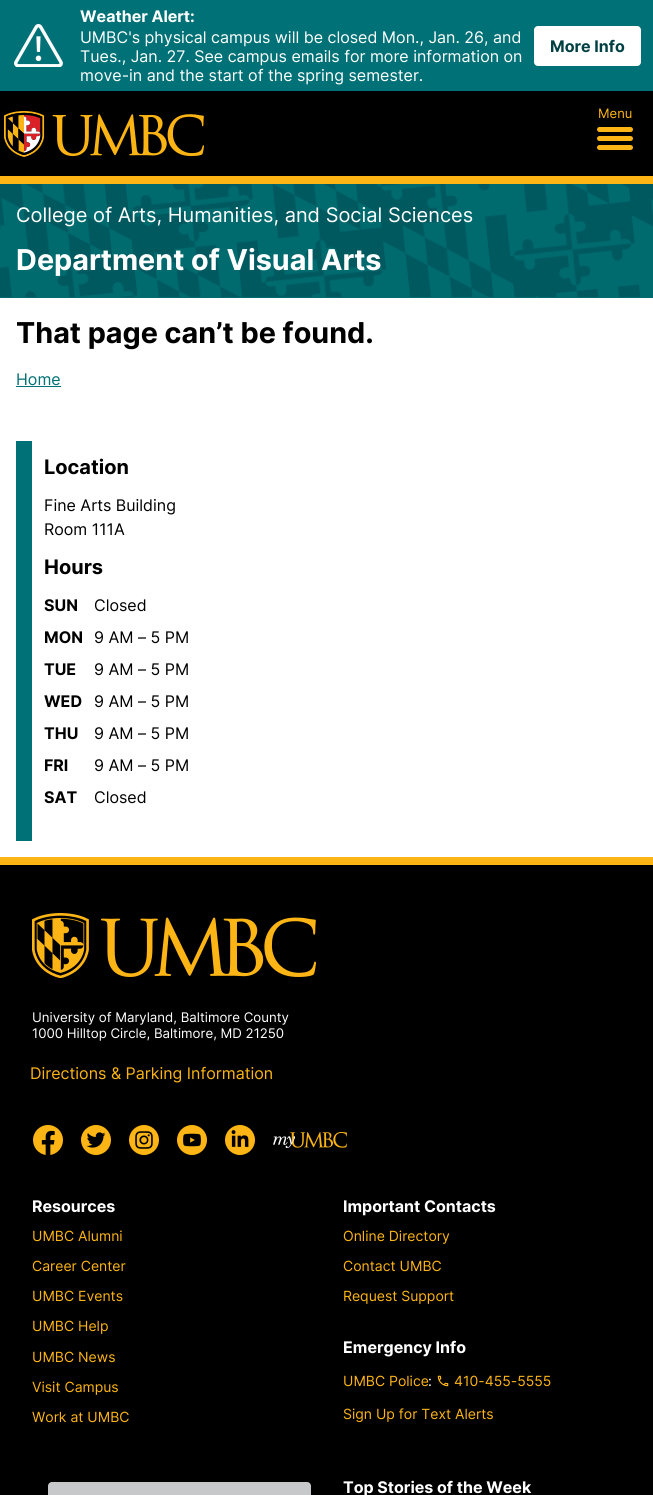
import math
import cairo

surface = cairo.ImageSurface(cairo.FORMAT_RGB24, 653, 1495)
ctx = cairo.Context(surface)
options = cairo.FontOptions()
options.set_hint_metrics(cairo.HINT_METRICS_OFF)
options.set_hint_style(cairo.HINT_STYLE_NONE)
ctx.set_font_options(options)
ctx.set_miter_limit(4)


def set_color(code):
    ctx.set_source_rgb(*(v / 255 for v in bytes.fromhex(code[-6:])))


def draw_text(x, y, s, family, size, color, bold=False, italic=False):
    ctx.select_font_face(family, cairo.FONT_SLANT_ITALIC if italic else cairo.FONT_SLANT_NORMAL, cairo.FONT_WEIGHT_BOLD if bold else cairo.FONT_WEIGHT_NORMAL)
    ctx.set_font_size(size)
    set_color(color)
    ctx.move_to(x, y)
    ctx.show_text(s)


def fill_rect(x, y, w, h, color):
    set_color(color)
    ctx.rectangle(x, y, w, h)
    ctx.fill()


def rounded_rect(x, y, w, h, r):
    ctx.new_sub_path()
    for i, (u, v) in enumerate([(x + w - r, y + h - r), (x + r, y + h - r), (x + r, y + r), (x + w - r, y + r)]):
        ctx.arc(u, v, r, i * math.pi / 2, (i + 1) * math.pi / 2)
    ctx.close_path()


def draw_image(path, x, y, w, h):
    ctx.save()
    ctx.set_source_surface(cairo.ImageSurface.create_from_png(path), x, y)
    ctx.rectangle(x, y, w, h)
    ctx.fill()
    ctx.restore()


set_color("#ffffff")
ctx.paint()
fill_rect(0, 0, 653, 91, "#007176")
draw_image("assets/img1.png", 14, 24, 49, 43)
draw_text(80, 22, "Weather Alert:", "Inter", 16, "#ffffff", bold=True)
draw_text(80, 43, "UMBC's physical campus will be closed Mon., Jan. 26, and", "Inter", 16, "#ffffff")
draw_text(80, 62, "Tues., Jan. 27. See campus emails for more information on", "Inter", 16, "#ffffff")
draw_text(80, 81, "move-in and the start of the spring semester.", "Inter", 16, "#ffffff")
rounded_rect(534, 26, 107, 40, 4)
ctx.fill()
draw_text(550, 52, "More Info", "Inter", 16, "#004043", bold=True)
fill_rect(0, 176, 653, 8, "#fdb515")
fill_rect(0, 91, 653, 85, "#000000")
draw_image("assets/img2.png", 4, 111, 200, 46)
draw_text(598, 118, "Menu", "Inter", 13, "#fdb515")
rounded_rect(597, 136, 36, 5, 2.5)
ctx.fill()
rounded_rect(597, 127, 36, 5, 2.5)
ctx.fill()
rounded_rect(597, 145, 36, 5, 2.5)
ctx.fill()
fill_rect(0, 184, 653, 114, "#006b6f")
draw_image("assets/img3.png", 0, 184, 653, 113)
draw_text(16, 222, "College of Arts, Humanities, and Social Sciences", "Inter", 20, "#ffffff")
draw_text(16, 270, "Department of Visual Arts", "Inter", 28.75, "#ffffff", bold=True)
draw_text(16, 343, "That page can’t be found.", "Inter", 28.75, "#000000", bold=True)
draw_text(16, 385, "Home", "Inter", 16, "#007176")
fill_rect(16, 386, 45, 1, "#007176")
fill_rect(16, 441, 16, 400, "#007176")
draw_text(44, 474, "Location", "Inter", 20, "#000000", bold=True)
draw_text(44, 511, "Fine Arts Building", "Inter", 16, "#000000")
draw_text(44, 535, "Room 111A", "Inter", 16, "#000000")
draw_text(44, 574, "Hours", "Inter", 20, "#000000", bold=True)
draw_text(44, 611, "SUN", "Inter", 16, "#000000", bold=True)
draw_text(94, 611, "Closed", "Inter", 16, "#000000")
draw_text(44, 643, "MON", "Inter", 16, "#000000", bold=True)
draw_text(94, 643, "9 AM – 5 PM", "Inter", 16, "#000000")
draw_text(44, 675, "TUE", "Inter", 16, "#000000", bold=True)
draw_text(94, 675, "9 AM – 5 PM", "Inter", 16, "#000000")
draw_text(44, 707, "WED", "Inter", 16, "#000000", bold=True)
draw_text(94, 707, "9 AM – 5 PM", "Inter", 16, "#000000")
draw_text(44, 739, "THU", "Inter", 16, "#000000", bold=True)
draw_text(94, 739, "9 AM – 5 PM", "Inter", 16, "#000000")
draw_text(44, 771, "FRI", "Inter", 16, "#000000", bold=True)
draw_text(94, 771, "9 AM – 5 PM", "Inter", 16, "#000000")
draw_text(44, 803, "SAT", "Inter", 16, "#000000", bold=True)
draw_text(94, 803, "Closed", "Inter", 16, "#000000")
fill_rect(0, 865, 653, 630, "#000000")
fill_rect(0, 857, 653, 8, "#fdb515")
draw_image("assets/img4.png", 32, 913, 284, 65)
draw_text(32, 1022, "University of Maryland, Baltimore County", "Inter", 13.25, "#ffffff")
draw_text(32, 1038, "1000 Hilltop Circle, Baltimore, MD 21250", "Inter", 13.25, "#ffffff")
draw_text(30, 1079, "Directions & Parking Information", "Inter", 16, "#fdb515")
draw_image("assets/img5.png", 33, 1125, 30, 30)
draw_image("assets/img6.png", 81, 1125, 30, 30)
draw_image("assets/img7.png", 129, 1125, 30, 30)
draw_image("assets/img8.png", 177, 1125, 30, 30)
draw_image("assets/img9.png", 225, 1125, 30, 30)
draw_image("assets/img10.png", 273, 1132, 74, 16)
draw_text(32, 1212, "Resources", "Inter", 16, "#ffffff", bold=True)
draw_text(32, 1241, "UMBC Alumni", "Inter", 14, "#fdb515")
draw_text(32, 1271, "Career Center", "Inter", 14, "#fdb515")
draw_text(32, 1301, "UMBC Events", "Inter", 14, "#fdb515")
draw_text(32, 1331, "UMBC Help", "Inter", 14, "#fdb515")
draw_text(32, 1362, "UMBC News", "Inter", 14, "#fdb515")
draw_text(32, 1392, "Visit Campus", "Inter", 14, "#fdb515")
draw_text(32, 1422, "Work at UMBC", "Inter", 14, "#fdb515")
draw_text(343, 1212, "Important Contacts", "Inter", 16, "#ffffff", bold=True)
draw_text(343, 1241, "Online Directory", "Inter", 14, "#fdb515")
draw_text(343, 1271, "Contact UMBC", "Inter", 14, "#fdb515")
draw_text(343, 1301, "Request Support", "Inter", 14, "#fdb515")
draw_text(343, 1353, "Emergency Info", "Inter", 16, "#ffffff", bold=True)
draw_text(343, 1386, "UMBC Police", "Inter", 14, "#fdb515")
draw_text(428, 1386, ":", "Inter", 14, "#ffffff")
draw_image("assets/img11.png", 437, 1375, 12, 12)
draw_text(454, 1386, "410-455-5555", "Inter", 14, "#fdb515")
draw_text(343, 1419, "Sign Up for Text Alerts", "Inter", 14, "#fdb515")
set_color("#c7c8ca")
rounded_rect(48, 1482, 263, 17, 4)
ctx.fill()
draw_text(343, 1493, "Top Stories of the Week", "Inter", 16, "#ffffff", bold=True)
surface.write_to_png("output.png")
